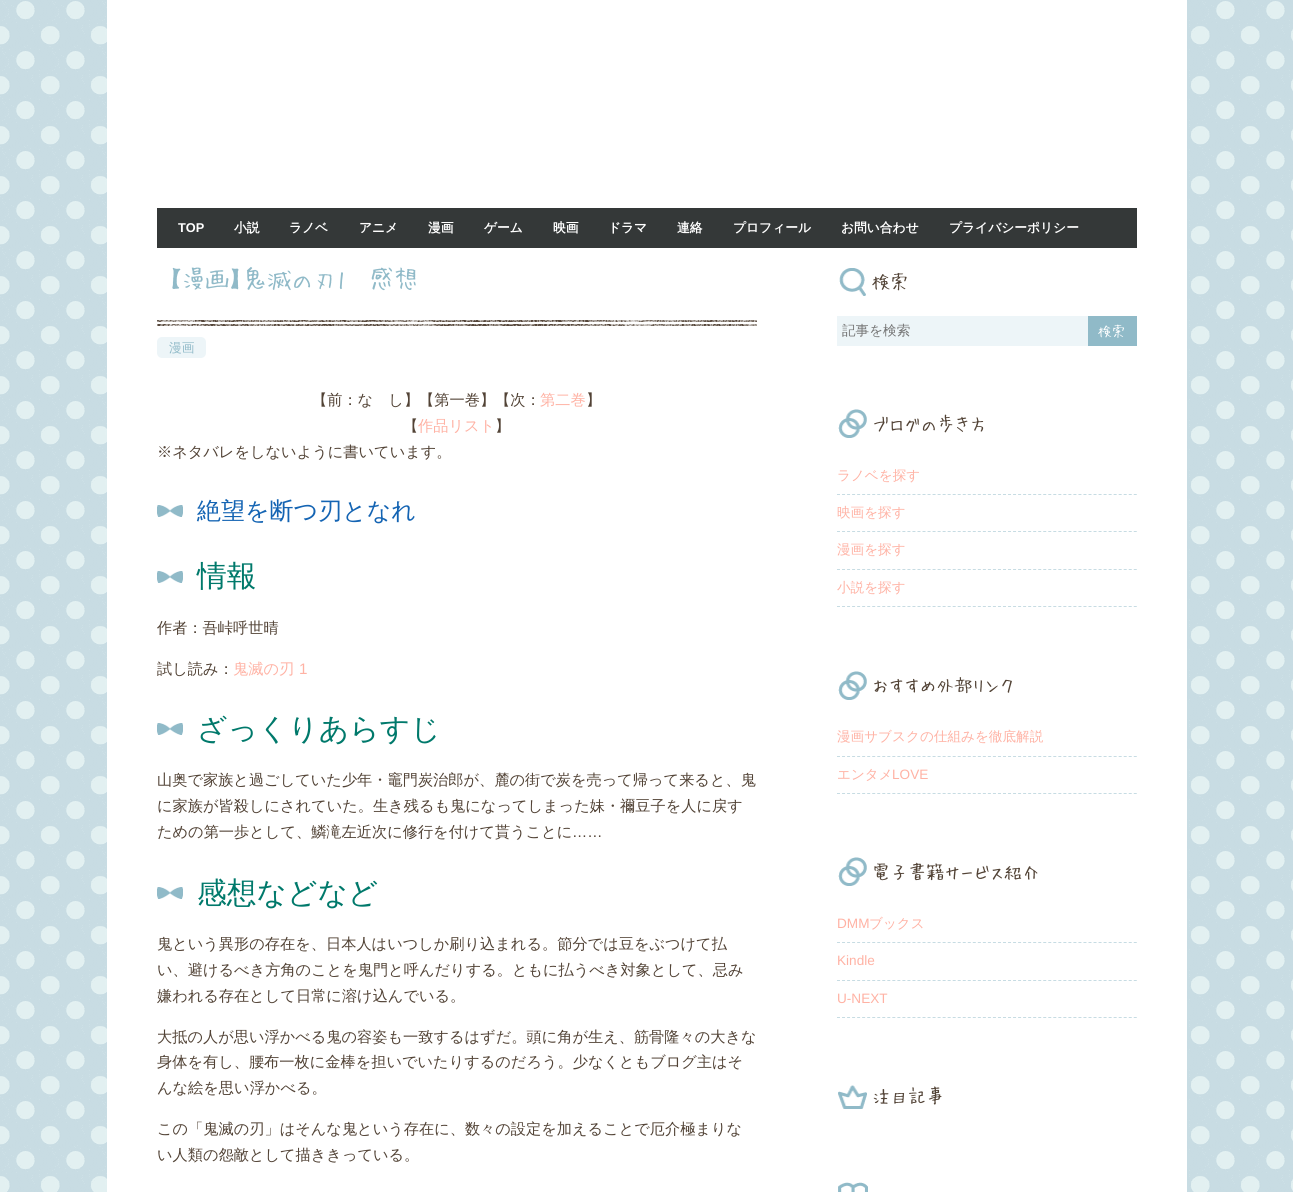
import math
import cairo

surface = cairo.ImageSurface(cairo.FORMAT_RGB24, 1293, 1192)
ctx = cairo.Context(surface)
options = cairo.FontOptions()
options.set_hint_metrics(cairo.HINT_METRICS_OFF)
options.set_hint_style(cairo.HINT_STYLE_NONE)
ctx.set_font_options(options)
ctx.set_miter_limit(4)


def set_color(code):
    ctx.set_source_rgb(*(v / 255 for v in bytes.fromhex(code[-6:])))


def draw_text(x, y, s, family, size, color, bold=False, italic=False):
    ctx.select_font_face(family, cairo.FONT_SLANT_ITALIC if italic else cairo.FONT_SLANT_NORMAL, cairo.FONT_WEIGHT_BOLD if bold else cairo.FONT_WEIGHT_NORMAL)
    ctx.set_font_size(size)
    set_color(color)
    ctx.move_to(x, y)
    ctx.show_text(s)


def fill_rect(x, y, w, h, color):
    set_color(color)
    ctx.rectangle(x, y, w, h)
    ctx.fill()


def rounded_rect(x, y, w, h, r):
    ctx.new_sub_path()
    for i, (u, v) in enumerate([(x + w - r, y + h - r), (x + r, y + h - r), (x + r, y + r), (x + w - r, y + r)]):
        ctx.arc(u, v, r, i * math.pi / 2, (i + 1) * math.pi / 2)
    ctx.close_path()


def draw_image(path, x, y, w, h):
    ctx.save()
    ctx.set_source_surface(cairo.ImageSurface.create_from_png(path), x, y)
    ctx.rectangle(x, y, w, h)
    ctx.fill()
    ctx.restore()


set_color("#ffffff")
ctx.paint()
draw_image("assets/img1.png", 0, 0, 1293, 1192)
fill_rect(107, 0, 1080, 1192, "#ffffff")
fill_rect(157, 208, 980, 40, "#343838")
draw_text(178, 232, "TOP", "Liberation Sans", 12.75, "#ffffff", bold=True)
draw_text(234, 232, "小説", "WenQuanYi Zen Hei", 12.75, "#ffffff", bold=True)
draw_text(289, 232, "ラノベ", "WenQuanYi Zen Hei", 12.75, "#ffffff", bold=True)
draw_text(359, 232, "アニメ", "WenQuanYi Zen Hei", 12.75, "#ffffff", bold=True)
draw_text(428, 232, "漫画", "WenQuanYi Zen Hei", 12.75, "#ffffff", bold=True)
draw_text(484, 232, "ゲーム", "WenQuanYi Zen Hei", 12.75, "#ffffff", bold=True)
draw_text(553, 232, "映画", "WenQuanYi Zen Hei", 12.75, "#ffffff", bold=True)
draw_text(608, 232, "ドラマ", "WenQuanYi Zen Hei", 12.75, "#ffffff", bold=True)
draw_text(677, 232, "連絡", "WenQuanYi Zen Hei", 12.75, "#ffffff", bold=True)
draw_text(733, 232, "プロフィール", "WenQuanYi Zen Hei", 12.75, "#ffffff", bold=True)
draw_text(841, 232, "お問い合わせ", "WenQuanYi Zen Hei", 12.75, "#ffffff", bold=True)
draw_text(949, 232, "プライバシーポリシー", "WenQuanYi Zen Hei", 12.75, "#ffffff", bold=True)
draw_text(167, 287, "【漫画】鬼滅の刃1", "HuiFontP", 24, "#90bac8")
draw_text(370, 287, "感想", "HuiFontP", 24, "#90bac8")
draw_image("assets/img2.png", 157, 320, 600, 6)
set_color("#edf5f8")
rounded_rect(157, 337, 49, 21, 5)
ctx.fill()
draw_text(169, 352, "漫画", "WenQuanYi Zen Hei Medium", 12.75, "#90bac8")
draw_text(312, 405, "【前：な　し】【第一巻】【次：", "WenQuanYi Zen Hei Medium", 15.2, "#524336")
draw_text(540, 405, "第二巻", "WenQuanYi Zen Hei Medium", 15.2, "#ffb2a4")
draw_text(586, 405, "】", "WenQuanYi Zen Hei Medium", 15.2, "#524336")
draw_text(403, 431, "【", "WenQuanYi Zen Hei Medium", 15.2, "#524336")
draw_text(418, 431, "作品リスト", "WenQuanYi Zen Hei Medium", 15.2, "#ffb2a4")
draw_text(495, 431, "】", "WenQuanYi Zen Hei Medium", 15.2, "#524336")
draw_text(157, 457, "※ネタバレをしないように書いています。", "WenQuanYi Zen Hei Medium", 15.2, "#524336")
draw_image("assets/img3.png", 157, 505, 26, 12)
draw_text(197, 519, "絶望を断つ刃となれ", "WenQuanYi Zen Hei Medium", 24, "#1464b3")
draw_image("assets/img3.png", 157, 571, 26, 12)
draw_text(197, 586, "情報", "WenQuanYi Zen Hei Medium", 29.75, "#00796b")
draw_text(157, 633, "作者：吾峠呼世晴", "WenQuanYi Zen Hei Medium", 15.2, "#524336")
draw_text(157, 674, "試し読み：", "WenQuanYi Zen Hei Medium", 15.2, "#524336")
draw_text(233, 674, "鬼滅の刃", "WenQuanYi Zen Hei Medium", 15.2, "#ffb2a4")
draw_text(299, 674, "1", "Liberation Sans", 15.2, "#ffb2a4")
draw_image("assets/img3.png", 157, 723, 26, 12)
draw_text(197, 739, "ざっくりあらすじ", "WenQuanYi Zen Hei Medium", 29.75, "#00796b")
draw_text(157, 785, "山奥で家族と過ごしていた少年・竈門炭治郎が、麓の街で炭を売って帰って来ると、鬼", "WenQuanYi Zen Hei Medium", 15.2, "#524336")
draw_text(157, 811, "に家族が皆殺しにされていた。生き残るも鬼になってしまった妹・禰豆子を人に戻す", "WenQuanYi Zen Hei Medium", 15.2, "#524336")
draw_text(157, 837, "ための第一歩として、鱗滝左近次に修行を付けて貰うことに", "WenQuanYi Zen Hei Medium", 15.2, "#524336")
draw_text(572, 837, "……", "Liberation Sans", 15.2, "#524336")
draw_image("assets/img3.png", 157, 887, 26, 12)
draw_text(197, 903, "感想などなど", "WenQuanYi Zen Hei Medium", 29.75, "#00796b")
draw_text(157, 949, "鬼という異形の存在を、日本人はいつしか刷り込まれる。節分では豆をぶつけて払", "WenQuanYi Zen Hei Medium", 15.2, "#524336")
draw_text(157, 975, "い、避けるべき方角のことを鬼門と呼んだりする。ともに払うべき対象として、忌み", "WenQuanYi Zen Hei Medium", 15.2, "#524336")
draw_text(157, 1001, "嫌われる存在として日常に溶け込んでいる。", "WenQuanYi Zen Hei Medium", 15.2, "#524336")
draw_text(157, 1042, "大抵の人が思い浮かべる鬼の容姿も一致するはずだ。頭に角が生え、筋骨隆々の大きな", "WenQuanYi Zen Hei Medium", 15.2, "#524336")
draw_text(157, 1067, "身体を有し、腰布一枚に金棒を担いでいたりするのだろう。少なくともブログ主はそ", "WenQuanYi Zen Hei Medium", 15.2, "#524336")
draw_text(157, 1093, "んな絵を思い浮かべる。", "WenQuanYi Zen Hei Medium", 15.2, "#524336")
draw_text(157, 1134, "この「鬼滅の刃」はそんな鬼という存在に、数々の設定を加えることで厄介極まりな", "WenQuanYi Zen Hei Medium", 15.2, "#524336")
draw_text(157, 1160, "い人類の怨敵として描ききっている。", "WenQuanYi Zen Hei Medium", 15.2, "#524336")
draw_image("assets/img4.png", 839, 268, 27, 28)
draw_text(872, 288, "検索", "HuiFontP", 18, "#524336")
fill_rect(837, 316, 251, 30, "#edf5f8")
ctx.save()
ctx.rectangle(842, 322, 225, 18)
ctx.clip()
draw_text(842, 335, "記事を検索", "WenQuanYi Zen Hei Medium", 13.6, "#757575")
ctx.restore()
fill_rect(1088, 316, 49, 30, "#90bac8")
draw_text(1098, 336, "検索", "HuiFontP", 13.6, "#ffffff")
draw_image("assets/img5.png", 838, 409, 29, 29)
draw_text(872, 430, "ブログの歩き方", "HuiFontP", 18, "#524336")
ctx.new_path()
ctx.move_to(837, 494.5)
ctx.line_to(1137, 494.5)
set_color("#c7dce3")
ctx.set_line_width(1)
ctx.set_dash([3, 2.03])
ctx.stroke()
draw_text(837, 480, "ラノベを探す", "WenQuanYi Zen Hei Medium", 13.6, "#ffb2a4")
ctx.new_path()
ctx.move_to(837, 531.5)
ctx.line_to(1137, 531.5)
set_color("#c7dce3")
ctx.stroke()
draw_text(837, 517, "映画を探す", "WenQuanYi Zen Hei Medium", 13.6, "#ffb2a4")
ctx.new_path()
ctx.move_to(837, 569.5)
ctx.line_to(1137, 569.5)
set_color("#c7dce3")
ctx.stroke()
draw_text(837, 554, "漫画を探す", "WenQuanYi Zen Hei Medium", 13.6, "#ffb2a4")
ctx.new_path()
ctx.move_to(837, 606.5)
ctx.line_to(1137, 606.5)
set_color("#c7dce3")
ctx.stroke()
draw_text(837, 592, "小説を探す", "WenQuanYi Zen Hei Medium", 13.6, "#ffb2a4")
draw_image("assets/img5.png", 838, 671, 29, 29)
draw_text(872, 691, "おすすめ外部リンク", "HuiFontP", 18, "#524336")
ctx.new_path()
ctx.move_to(837, 756.5)
ctx.line_to(1137, 756.5)
set_color("#c7dce3")
ctx.stroke()
draw_text(837, 741, "漫画サブスクの仕組みを徹底解説", "WenQuanYi Zen Hei Medium", 13.6, "#ffb2a4")
ctx.new_path()
ctx.move_to(837, 793.5)
ctx.line_to(1137, 793.5)
set_color("#c7dce3")
ctx.stroke()
draw_text(837, 779, "エンタメ", "WenQuanYi Zen Hei Medium", 13.6, "#ffb2a4")
draw_text(892, 779, "LOVE", "Liberation Sans", 13.6, "#ffb2a4")
draw_image("assets/img5.png", 838, 857, 29, 29)
draw_text(872, 878, "電子書籍サービス紹介", "HuiFontP", 18, "#524336")
ctx.new_path()
ctx.move_to(837, 942.5)
ctx.line_to(1137, 942.5)
set_color("#c7dce3")
ctx.stroke()
draw_text(837, 928, "DMM", "Liberation Sans", 13.6, "#ffb2a4")
draw_text(869, 928, "ブックス", "WenQuanYi Zen Hei Medium", 13.6, "#ffb2a4")
ctx.new_path()
ctx.move_to(837, 980.5)
ctx.line_to(1137, 980.5)
set_color("#c7dce3")
ctx.stroke()
draw_text(837, 965, "Kindle", "Liberation Sans", 13.6, "#ffb2a4")
ctx.new_path()
ctx.move_to(837, 1017.5)
ctx.line_to(1137, 1017.5)
set_color("#c7dce3")
ctx.stroke()
draw_text(837, 1003, "U-NEXT", "Liberation Sans", 13.6, "#ffb2a4")
draw_image("assets/img6.png", 838, 1085, 29, 24)
draw_text(872, 1102, "注目記事", "HuiFontP", 18, "#524336")
draw_image("assets/img7.png", 838, 1182, 30, 10)
surface.write_to_png("output.png")
